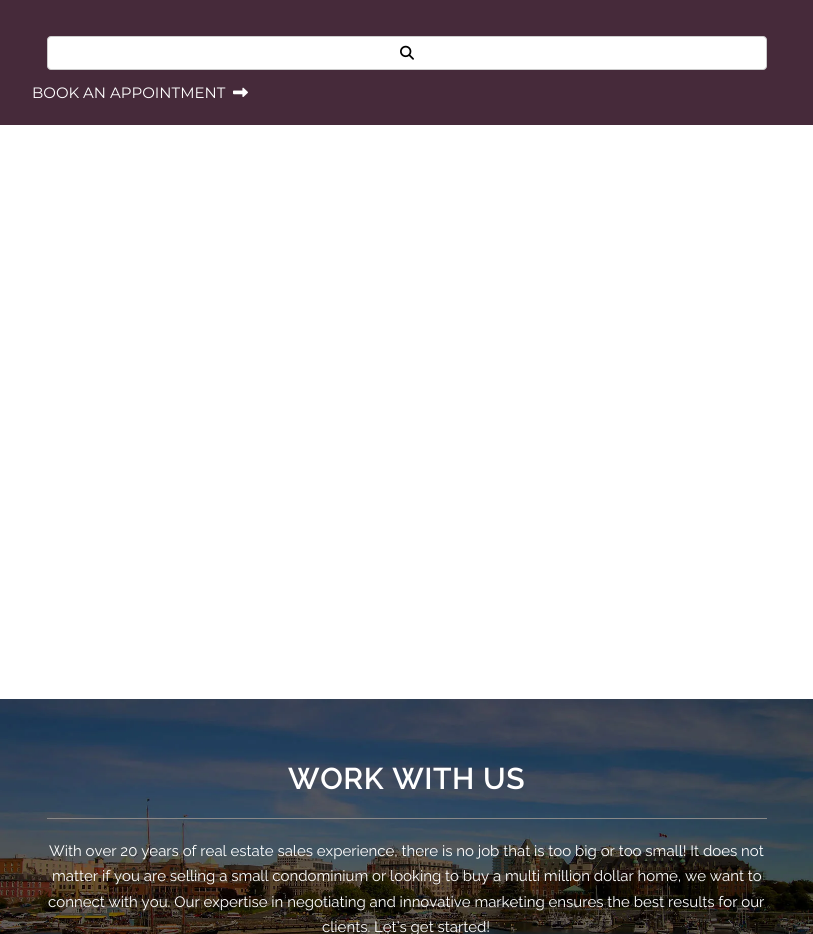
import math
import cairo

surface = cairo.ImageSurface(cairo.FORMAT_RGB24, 813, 934)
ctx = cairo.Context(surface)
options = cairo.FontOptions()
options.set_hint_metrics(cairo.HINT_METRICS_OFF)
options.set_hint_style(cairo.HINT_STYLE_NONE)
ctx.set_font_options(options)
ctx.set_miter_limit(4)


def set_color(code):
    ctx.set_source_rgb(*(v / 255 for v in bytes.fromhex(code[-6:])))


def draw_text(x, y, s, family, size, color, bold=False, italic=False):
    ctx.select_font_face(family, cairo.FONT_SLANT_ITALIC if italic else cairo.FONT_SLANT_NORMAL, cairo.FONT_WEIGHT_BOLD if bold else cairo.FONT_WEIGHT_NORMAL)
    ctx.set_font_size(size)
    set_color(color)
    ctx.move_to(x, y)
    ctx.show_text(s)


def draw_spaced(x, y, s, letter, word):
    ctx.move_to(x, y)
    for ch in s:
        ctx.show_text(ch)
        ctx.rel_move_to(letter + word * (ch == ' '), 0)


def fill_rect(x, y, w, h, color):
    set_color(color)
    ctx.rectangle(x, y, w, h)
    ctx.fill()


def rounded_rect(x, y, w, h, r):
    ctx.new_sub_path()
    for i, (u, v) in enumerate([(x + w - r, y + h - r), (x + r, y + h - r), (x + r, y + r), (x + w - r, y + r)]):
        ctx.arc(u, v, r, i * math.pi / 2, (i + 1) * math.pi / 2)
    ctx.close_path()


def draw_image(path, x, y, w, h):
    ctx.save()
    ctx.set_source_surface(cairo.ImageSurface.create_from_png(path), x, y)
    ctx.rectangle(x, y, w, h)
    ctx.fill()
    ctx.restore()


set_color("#ffffff")
ctx.paint()
fill_rect(0, 0, 813, 125, "#462a3a")
set_color("#ffffff")
rounded_rect(47.5, 36.5, 719, 33, 3.5)
ctx.fill_preserve()
set_color("#cccccc")
ctx.set_line_width(1)
ctx.stroke()
draw_image("assets/img1.png", 400, 45, 14, 15)
draw_text(32, 98, "BOOK AN APPOINTMENT", "Montserrat", 15, "#ffffff")
draw_image("assets/img2.png", 233, 87, 15, 10)
draw_image("assets/img3.png", 0, 699, 813, 235)
ctx.select_font_face("Raleway SemiBold")
ctx.set_font_size(30)
draw_spaced(288, 789, "WORK WITH US", 0.6, 0)
fill_rect(47, 818, 720, 1, "#888888")
draw_text(49, 856, "With over 20 years of real estate sales experience, there is no job that is too big or too small! It does not", "Raleway", 15, "#ffffff")
draw_text(52, 881, "matter if you are selling a small condominium or looking to buy a multi million dollar home, we want to", "Raleway", 15, "#ffffff")
draw_text(48, 907, "connect with you. Our expertise in negotiating and innovative marketing ensures the best results for our", "Raleway", 15, "#ffffff")
draw_text(322, 932, "clients. Let’s get started!", "Raleway", 15, "#ffffff")
surface.write_to_png("output.png")
